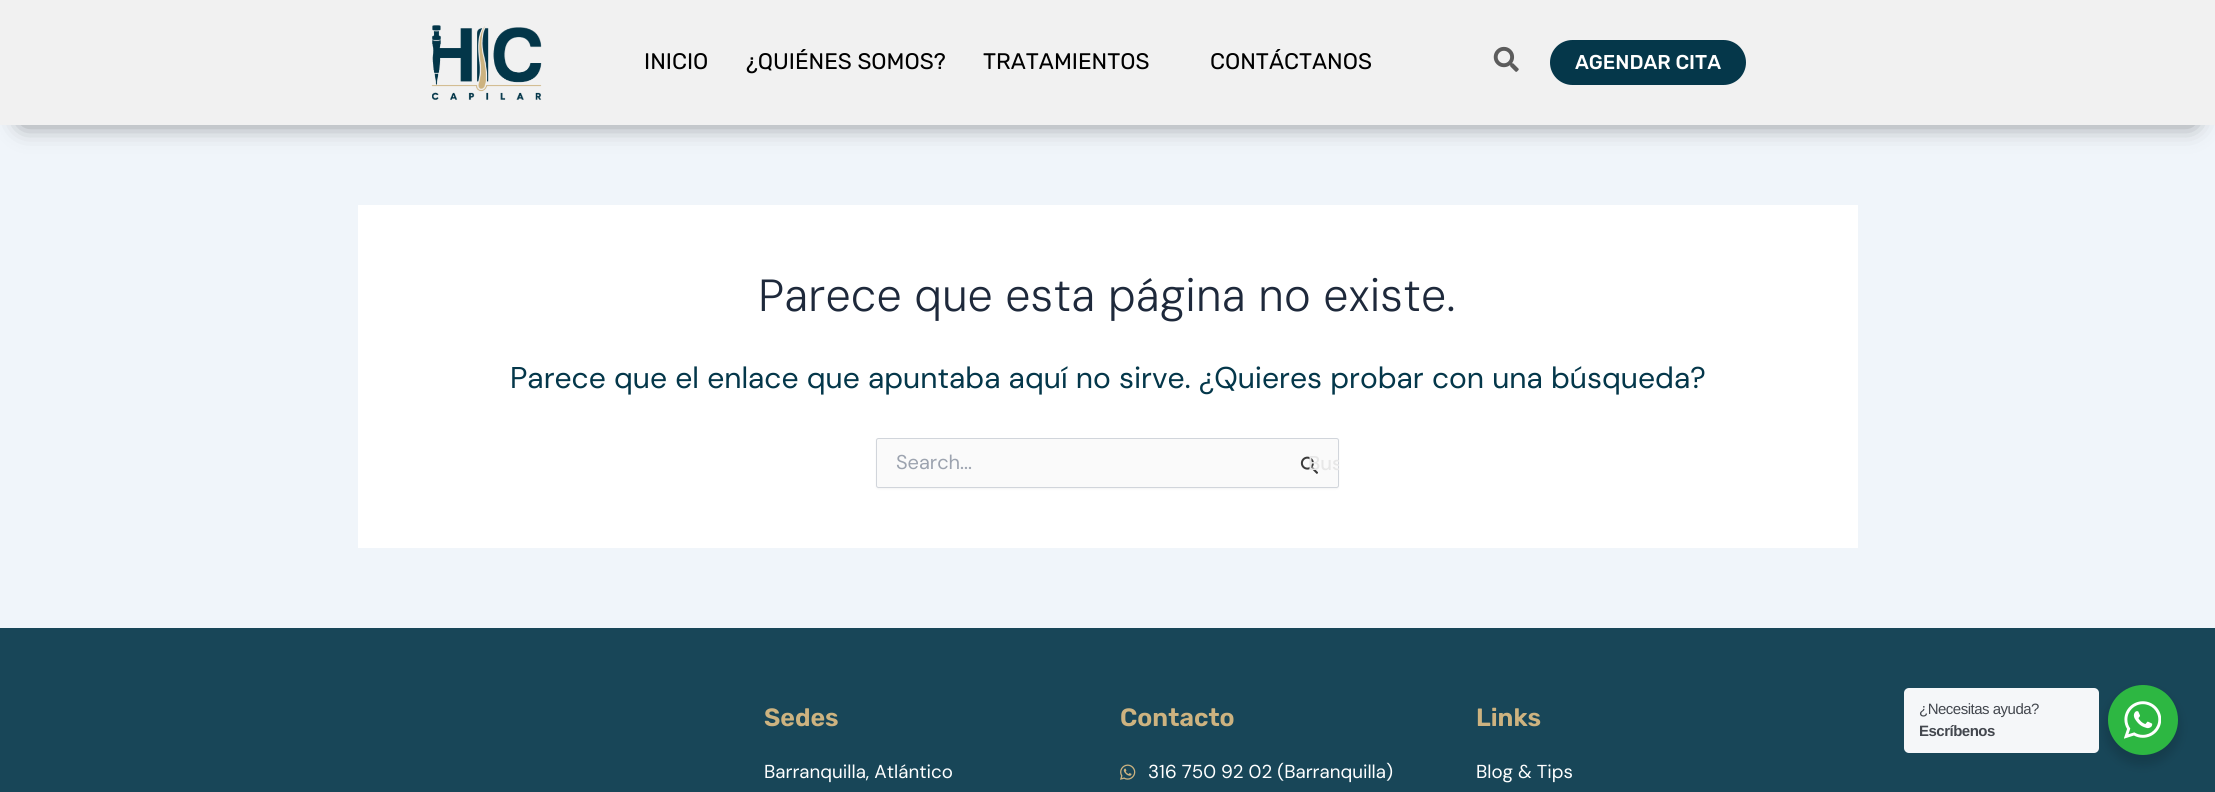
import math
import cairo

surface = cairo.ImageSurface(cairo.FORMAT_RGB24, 2215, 792)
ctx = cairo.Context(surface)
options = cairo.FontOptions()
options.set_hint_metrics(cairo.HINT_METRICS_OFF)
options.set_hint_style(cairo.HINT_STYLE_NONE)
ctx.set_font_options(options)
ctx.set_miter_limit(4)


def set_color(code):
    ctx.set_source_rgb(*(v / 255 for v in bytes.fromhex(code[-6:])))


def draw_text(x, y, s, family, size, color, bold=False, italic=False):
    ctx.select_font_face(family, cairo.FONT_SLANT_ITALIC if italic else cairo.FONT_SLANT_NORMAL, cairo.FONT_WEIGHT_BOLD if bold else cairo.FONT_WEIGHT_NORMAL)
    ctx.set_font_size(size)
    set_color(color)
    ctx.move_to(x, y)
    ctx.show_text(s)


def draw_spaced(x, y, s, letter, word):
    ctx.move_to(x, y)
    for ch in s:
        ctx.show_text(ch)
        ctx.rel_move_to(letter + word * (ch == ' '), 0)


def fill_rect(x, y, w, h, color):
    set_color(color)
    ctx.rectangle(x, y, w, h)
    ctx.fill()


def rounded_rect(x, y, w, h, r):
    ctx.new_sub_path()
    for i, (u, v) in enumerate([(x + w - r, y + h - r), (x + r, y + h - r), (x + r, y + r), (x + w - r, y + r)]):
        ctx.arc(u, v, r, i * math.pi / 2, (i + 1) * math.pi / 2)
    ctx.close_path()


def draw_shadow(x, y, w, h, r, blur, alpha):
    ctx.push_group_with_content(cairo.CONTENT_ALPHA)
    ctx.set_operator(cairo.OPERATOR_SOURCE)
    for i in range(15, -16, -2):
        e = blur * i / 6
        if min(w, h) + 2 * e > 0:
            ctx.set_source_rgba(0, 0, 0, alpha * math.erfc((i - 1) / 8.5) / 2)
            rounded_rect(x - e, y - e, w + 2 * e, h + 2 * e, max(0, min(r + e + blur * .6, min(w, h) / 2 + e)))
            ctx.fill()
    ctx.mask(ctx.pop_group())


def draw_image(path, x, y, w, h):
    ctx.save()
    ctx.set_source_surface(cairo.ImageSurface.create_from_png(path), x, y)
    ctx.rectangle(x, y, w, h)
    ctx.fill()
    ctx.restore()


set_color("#f0f5fa")
ctx.paint()
set_color("#000000")
draw_shadow(23, 43, 2170, 80, 0, 12.5, 0.5)
fill_rect(0, 0, 2215, 125, "#f1f1f1")
draw_image("assets/img1.png", 431, 25, 111, 75)
draw_text(644, 69, "INICIO", "Rubik", 22.5, "#000000")
draw_text(746, 69, "¿QUIÉNES SOMOS?", "Rubik", 22.5, "#000000")
draw_text(983, 69, "TRATAMIENTOS", "Rubik", 22.5, "#000000")
draw_text(1210, 69, "CONTÁCTANOS", "Rubik", 22.5, "#000000")
draw_image("assets/img2.png", 1493, 46, 26, 26)
set_color("#05374a")
rounded_rect(1550, 40, 196, 45, 22.5)
ctx.fill()
draw_text(1575, 69, "AGENDAR CITA", "Rubik Medium", 20, "#ffffff")
fill_rect(358, 205, 1500, 343, "#ffffff")
draw_text(758, 311, "Parece que esta página no existe.", "DM Sans Light", 45, "#1e293b")
ctx.select_font_face("DM Sans")
ctx.set_font_size(30)
set_color("#04374a")
draw_spaced(510, 388, "Parece que el enlace que apuntaba aquí no sirve. ¿Quieres probar con una búsqueda?", 0, 0.25)
set_color("#000000")
draw_shadow(876, 439, 463, 50, 2.5, 1, 0.05)
set_color("#fafafa")
rounded_rect(876.5, 438.5, 462, 49, 2)
ctx.fill_preserve()
set_color("#d1d5db")
ctx.set_line_width(1)
ctx.stroke()
draw_text(896, 469, "Search...", "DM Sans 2", 20, "#9ca3af")
draw_image("assets/img3.png", 1300, 456, 18, 18)
ctx.save()
rounded_rect(1283, 438, 56, 52, 2.5)
ctx.clip()
draw_text(1308, 470, "Bus", "DM Sans Medium", 20, "#e7e7e7")
ctx.restore()
fill_rect(0, 628, 2215, 164, "#184658")
draw_text(764, 726, "Sedes", "Rubik SemiBold", 25, "#cdb380")
draw_text(764, 778, "Barranquilla, Atlántico", "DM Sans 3", 18.75, "#ffffff")
draw_text(1120, 726, "Contacto", "Rubik SemiBold", 25, "#cdb380")
draw_image("assets/img4.png", 1120, 764, 16, 16)
draw_text(1148, 778, "316 750 92 02 (Barranquilla)", "DM Sans 3", 18.75, "#ffffff")
draw_text(1476, 726, "Links", "Rubik SemiBold", 25, "#cdb380")
draw_text(1476, 778, "Blog & Tips", "DM Sans 3", 18.75, "#ffffff")
set_color("#000000")
draw_shadow(2105, 690, 75, 75, 37.5, 5, 0.14)
set_color("#f5f7f9")
rounded_rect(1904, 688, 195, 65, 5)
ctx.fill()
ctx.select_font_face("Liberation Sans")
ctx.set_font_size(15)
set_color("#43474e")
draw_spaced(1919, 714, "¿Necesitas ayuda?", -0.5, 0)
ctx.select_font_face("Liberation Sans", cairo.FONT_SLANT_NORMAL, cairo.FONT_WEIGHT_BOLD)
draw_spaced(1919, 736, "Escríbenos", -0.5, 0)
set_color("#2db742")
ctx.new_path()
ctx.arc(2143, 720, 35, 0, 2 * math.pi)
ctx.fill()
draw_image("assets/img5.png", 2124, 701, 37, 38)
surface.write_to_png("output.png")
